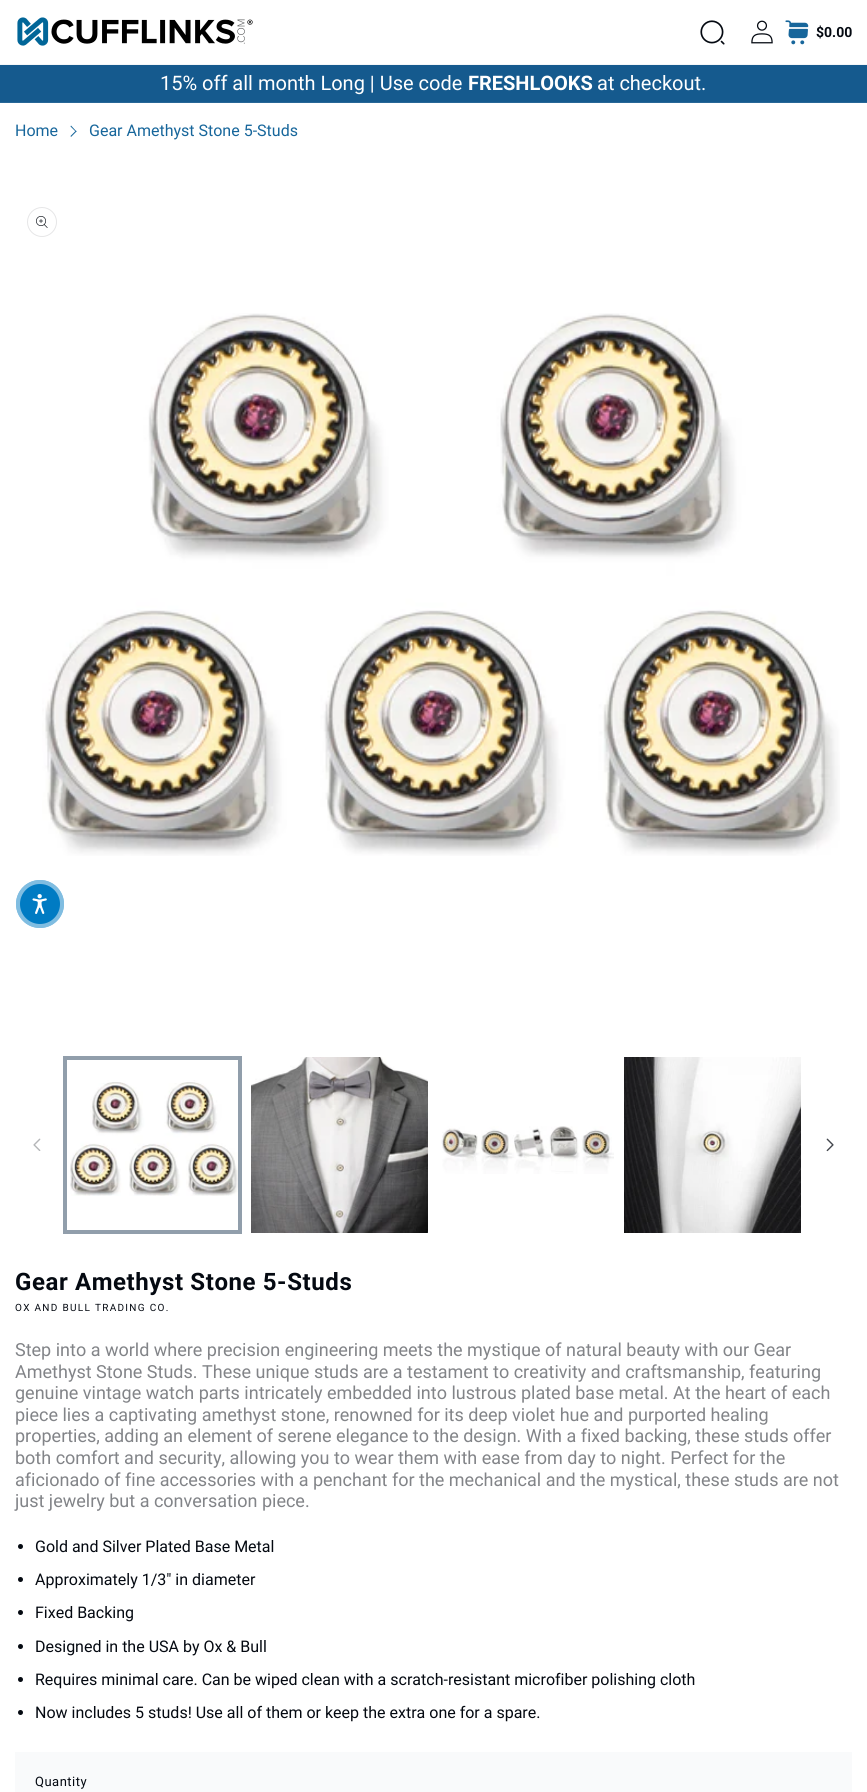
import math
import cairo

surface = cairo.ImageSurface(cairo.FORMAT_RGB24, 867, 1792)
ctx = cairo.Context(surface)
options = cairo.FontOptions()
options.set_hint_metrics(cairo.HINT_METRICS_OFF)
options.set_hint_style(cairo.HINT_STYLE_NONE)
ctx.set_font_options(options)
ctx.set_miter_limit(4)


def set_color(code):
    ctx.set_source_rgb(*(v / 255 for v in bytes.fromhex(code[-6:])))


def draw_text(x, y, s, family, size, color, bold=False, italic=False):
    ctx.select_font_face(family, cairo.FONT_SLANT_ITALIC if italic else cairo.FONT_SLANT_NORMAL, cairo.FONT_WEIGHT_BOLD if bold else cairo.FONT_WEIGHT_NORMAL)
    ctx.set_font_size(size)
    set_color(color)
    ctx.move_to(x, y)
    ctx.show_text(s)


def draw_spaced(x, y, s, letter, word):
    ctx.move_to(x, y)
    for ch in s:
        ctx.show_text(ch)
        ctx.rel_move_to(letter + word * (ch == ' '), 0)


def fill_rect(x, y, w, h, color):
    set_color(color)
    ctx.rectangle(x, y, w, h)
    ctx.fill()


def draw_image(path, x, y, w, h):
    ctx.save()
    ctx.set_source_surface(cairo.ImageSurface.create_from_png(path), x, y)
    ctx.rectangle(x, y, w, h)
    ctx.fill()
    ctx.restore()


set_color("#ffffff")
ctx.paint()
fill_rect(0, 64, 867, 1, "#f4f6f8")
draw_image("assets/img1.png", 17, 17, 236, 29)
draw_image("assets/img2.png", 700, 20, 25, 25)
draw_image("assets/img3.png", 751, 20, 22, 24)
draw_image("assets/img4.png", 785, 20, 24, 25)
draw_text(816, 37, "$0.00", "Roboto", 14, "#040911", bold=True)
fill_rect(0, 65, 867, 37, "#155a8e")
fill_rect(0, 102, 867, 1, "#286797")
draw_text(160, 90, "15% off all month Long | Use code", "Roboto", 20, "#ffffff")
draw_text(468, 90, "FRESHLOOKS", "Roboto", 20, "#ffffff", bold=True)
draw_text(597, 90, "at checkout.", "Roboto", 20, "#ffffff")
draw_text(15, 136, "Home", "Roboto", 16, "#17669b")
ctx.new_path()
ctx.move_to(71, 125.5)
ctx.line_to(76.5, 131.5)
ctx.line_to(76, 132)
ctx.line_to(70.5, 126.5)
ctx.close_path()
ctx.fill()
ctx.new_path()
ctx.move_to(76, 130.5)
ctx.line_to(76.5, 131.5)
ctx.line_to(71, 137)
ctx.line_to(70.5, 136)
ctx.close_path()
ctx.fill()
draw_text(89, 136, "Gear Amethyst Stone 5-Studs", "Roboto", 16, "#17669b")
ctx.new_path()
ctx.arc(42, 222, 14.5, 0, 2 * math.pi)
set_color("#e6e6e7")
ctx.set_line_width(1)
ctx.stroke()
draw_image("assets/img5.png", 36, 216, 12, 12)
draw_image("assets/img6.png", 42, 313, 798, 543)
draw_image("assets/img7.png", 33, 1138, 8, 13)
ctx.rectangle(63.5, 1056.5, 178, 177)
set_color("#919eab")
ctx.stroke()
draw_image("assets/img8.png", 70, 1080, 168, 116)
ctx.rectangle(65.5, 1058.5, 174, 173)
ctx.set_line_width(3)
ctx.stroke()
draw_image("assets/img9.png", 251, 1057, 177, 176)
draw_image("assets/img10.png", 441, 1126, 173, 48)
draw_image("assets/img11.png", 624, 1057, 177, 176)
draw_image("assets/img12.png", 826, 1138, 8, 14)
ctx.select_font_face("Roboto", cairo.FONT_SLANT_NORMAL, cairo.FONT_WEIGHT_BOLD)
ctx.set_font_size(24)
set_color("#040911")
draw_spaced(15, 1290, "Gear Amethyst Stone 5-Studs", 0.6, 0)
ctx.select_font_face("Roboto")
ctx.set_font_size(10)
draw_spaced(15, 1311, "OX AND BULL TRADING CO.", 1.3, 0)
draw_text(15, 1356, "Step into a world where precision engineering meets the mystique of natural beauty with our Gear", "Roboto", 18, "#828488")
draw_text(15, 1378, "Amethyst Stone Studs. These unique studs are a testament to creativity and craftsmanship, featuring", "Roboto", 18, "#828488")
draw_text(15, 1399, "genuine vintage watch parts intricately embedded into lustrous plated base metal. At the heart of each", "Roboto", 18, "#828488")
draw_text(15, 1421, "piece lies a captivating amethyst stone, renowned for its deep violet hue and purported healing", "Roboto", 18, "#828488")
draw_text(15, 1442, "properties, adding an element of serene elegance to the design. With a fixed backing, these studs offer", "Roboto", 18, "#828488")
draw_text(15, 1464, "both comfort and security, allowing you to wear them with ease from day to night. Perfect for the", "Roboto", 18, "#828488")
draw_text(15, 1486, "aficionado of fine accessories with a penchant for the mechanical and the mystical, these studs are not", "Roboto", 18, "#828488")
draw_text(15, 1507, "just jewelry but a conversation piece.", "Roboto", 18, "#828488")
set_color("#040911")
ctx.new_path()
ctx.arc(20.5, 1546.5, 2.5, 0, 2 * math.pi)
ctx.fill()
draw_text(35, 1552, "Gold and Silver Plated Base Metal", "Roboto", 16, "#040911")
ctx.new_path()
ctx.arc(20.5, 1579.5, 2.5, 0, 2 * math.pi)
ctx.fill()
draw_text(35, 1585, "Approximately 1/3\" in diameter", "Roboto", 16, "#040911")
ctx.new_path()
ctx.arc(20.5, 1612.5, 2.5, 0, 2 * math.pi)
ctx.fill()
draw_text(35, 1618, "Fixed Backing", "Roboto", 16, "#040911")
ctx.new_path()
ctx.arc(20.5, 1646.5, 2.5, 0, 2 * math.pi)
ctx.fill()
draw_text(35, 1652, "Designed in the USA by Ox & Bull", "Roboto", 16, "#040911")
ctx.new_path()
ctx.arc(20.5, 1679.5, 2.5, 0, 2 * math.pi)
ctx.fill()
draw_text(35, 1685, "Requires minimal care. Can be wiped clean with a scratch-resistant microfiber polishing cloth", "Roboto", 16, "#040911")
ctx.new_path()
ctx.arc(20.5, 1712.5, 2.5, 0, 2 * math.pi)
ctx.fill()
draw_text(35, 1718, "Now includes 5 studs! Use all of them or keep the extra one for a spare.", "Roboto", 16, "#040911")
fill_rect(15, 1752, 837, 40, "#f9fafb")
ctx.set_font_size(13)
set_color("#040911")
draw_spaced(35, 1786, "Quantity", 0.5, 0)
set_color("#007bc3")
ctx.new_path()
ctx.arc(40, 904, 24, 0, 2 * math.pi)
ctx.fill()
ctx.arc(40, 904, 22, 0, 2 * math.pi)
ctx.set_source_rgba(1, 1, 1, 0.5)
ctx.set_line_width(4)
ctx.stroke()
draw_image("assets/img13.png", 32, 894, 15, 20)
surface.write_to_png("output.png")
